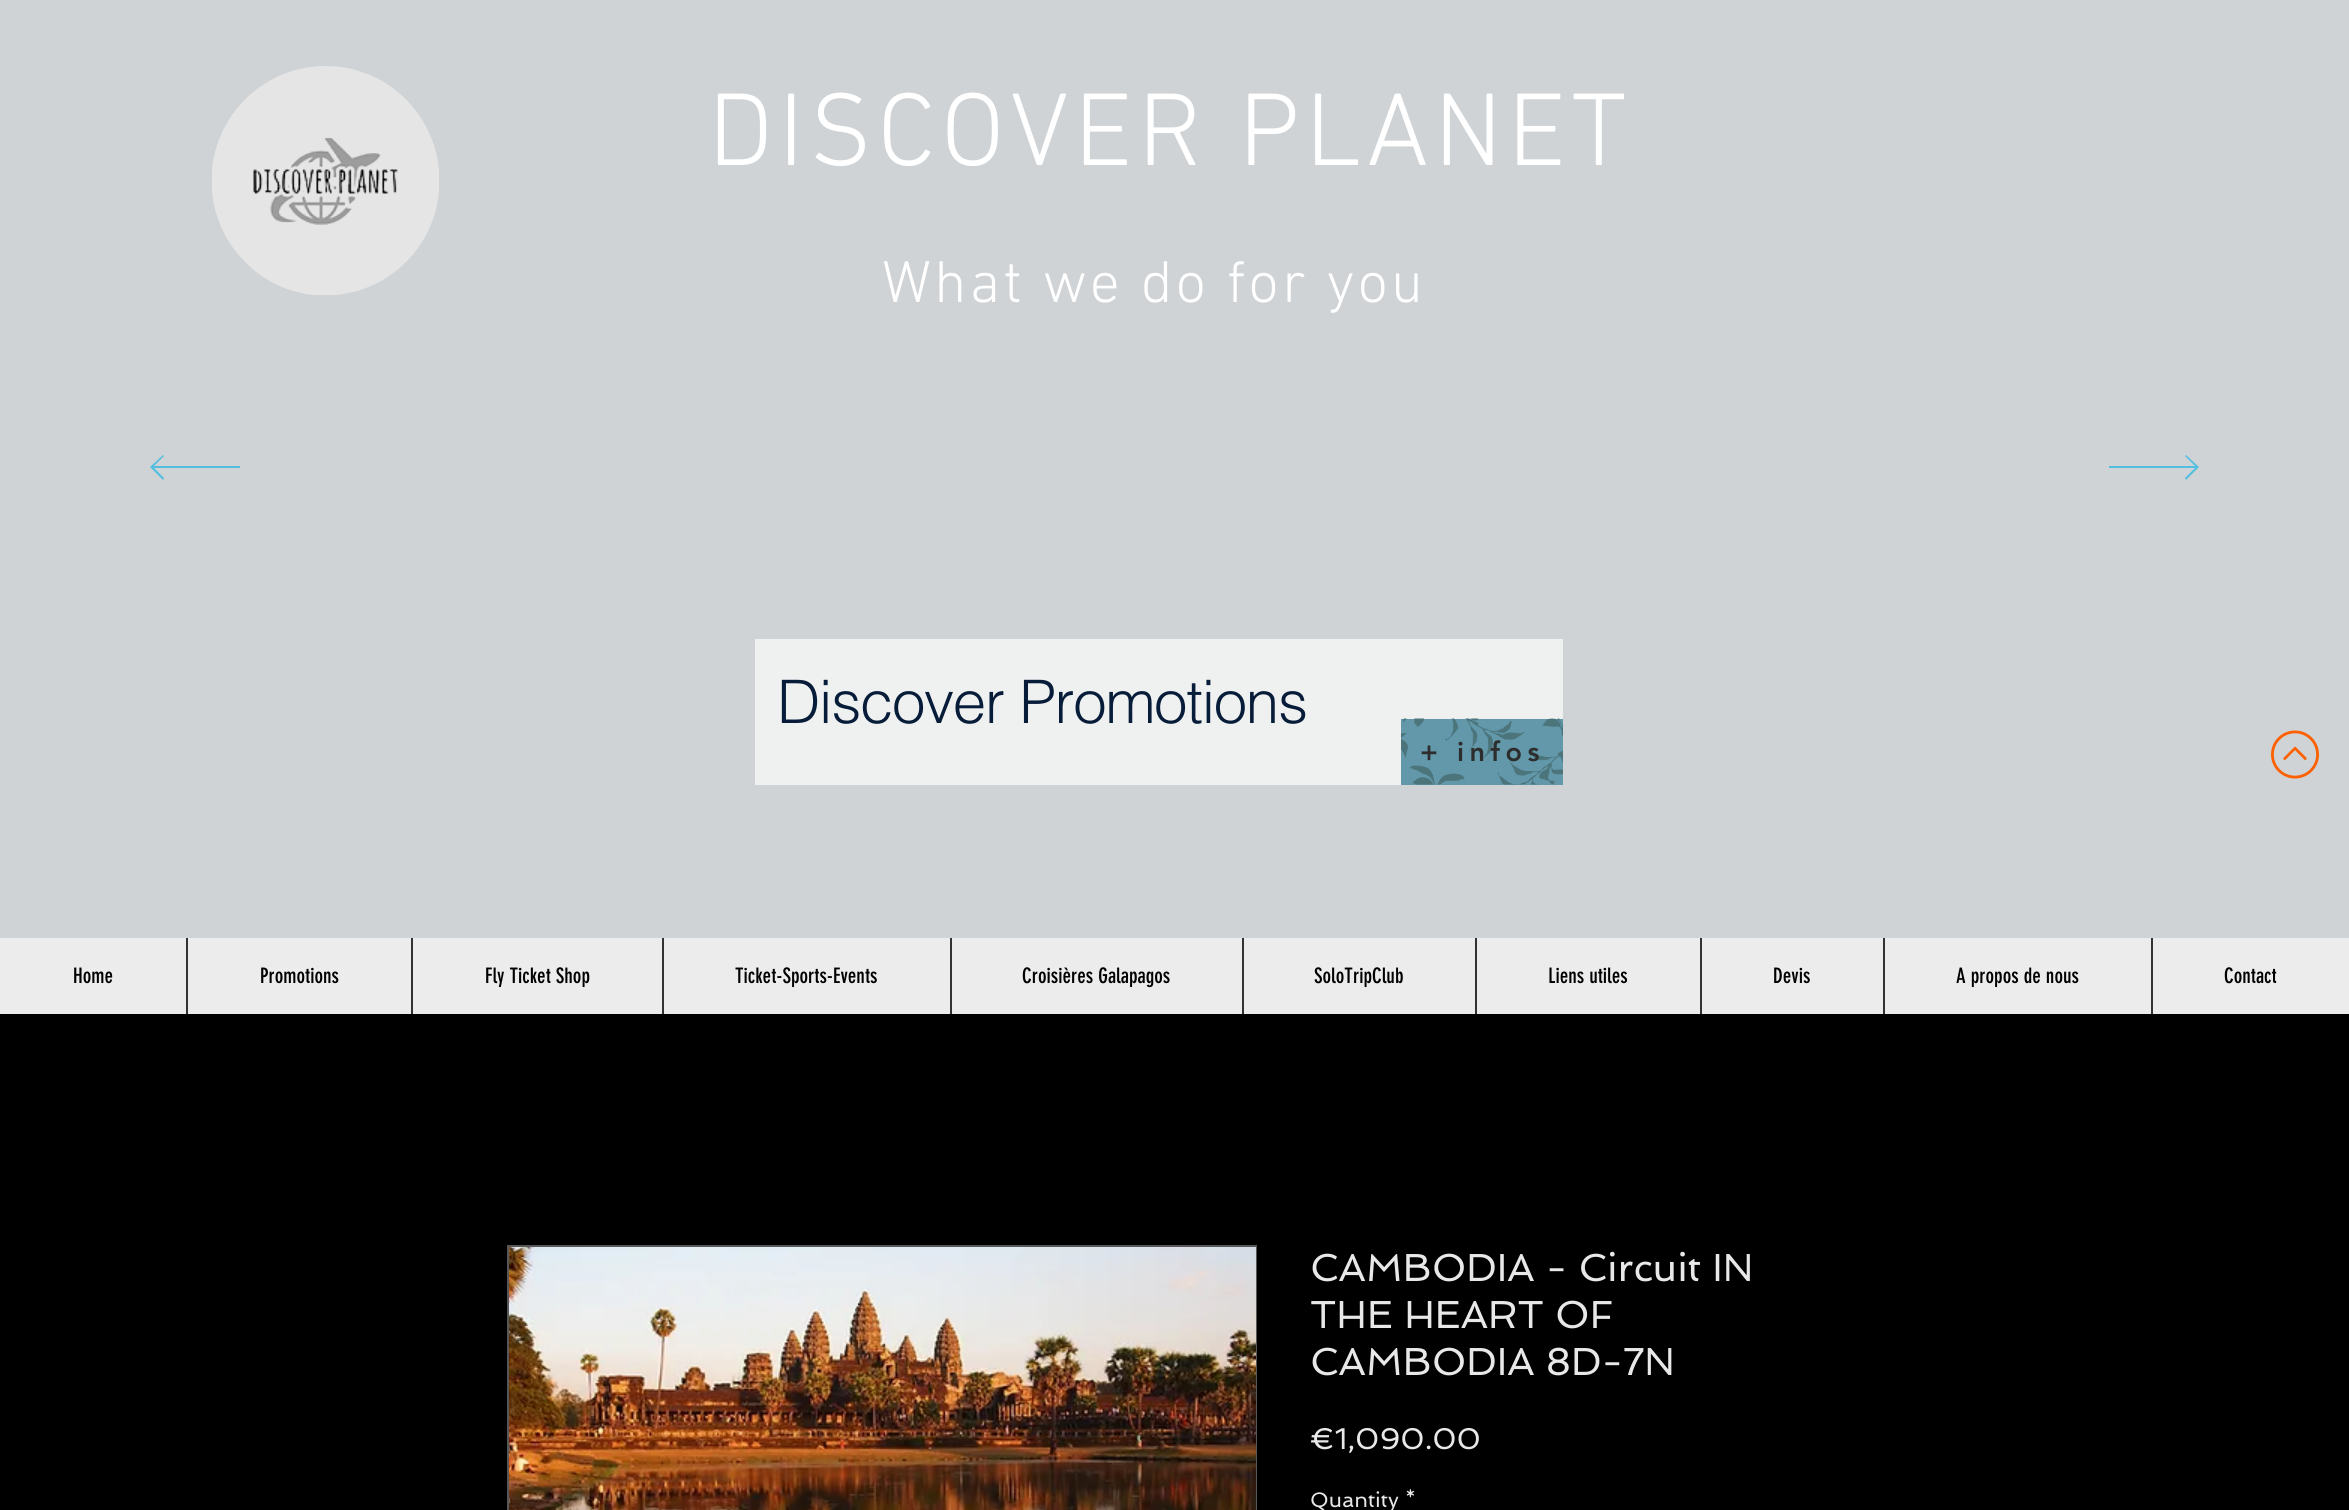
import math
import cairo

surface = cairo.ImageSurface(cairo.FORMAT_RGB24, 2349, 1510)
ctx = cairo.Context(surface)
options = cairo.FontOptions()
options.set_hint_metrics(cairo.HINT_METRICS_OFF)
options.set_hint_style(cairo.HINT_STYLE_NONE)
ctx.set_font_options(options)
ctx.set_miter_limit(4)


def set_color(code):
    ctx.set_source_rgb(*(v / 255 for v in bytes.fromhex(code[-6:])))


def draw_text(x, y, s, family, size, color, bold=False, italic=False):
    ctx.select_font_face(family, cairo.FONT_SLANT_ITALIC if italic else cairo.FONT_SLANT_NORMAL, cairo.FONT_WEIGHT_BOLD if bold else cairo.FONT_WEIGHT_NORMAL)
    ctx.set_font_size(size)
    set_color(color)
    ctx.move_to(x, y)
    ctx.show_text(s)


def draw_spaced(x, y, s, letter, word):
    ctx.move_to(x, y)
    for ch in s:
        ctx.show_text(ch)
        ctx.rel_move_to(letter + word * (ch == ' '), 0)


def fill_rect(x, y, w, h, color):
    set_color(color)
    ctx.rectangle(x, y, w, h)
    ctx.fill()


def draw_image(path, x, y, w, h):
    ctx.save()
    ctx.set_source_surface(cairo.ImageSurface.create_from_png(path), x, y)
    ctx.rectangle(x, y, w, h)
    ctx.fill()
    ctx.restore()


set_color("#000000")
ctx.paint()
fill_rect(0, 0, 2349, 938, "#cfd3d6")
set_color("#53bfe0")
ctx.new_path()
ctx.move_to(163, 455)
ctx.line_to(164, 456)
ctx.line_to(154, 466)
ctx.line_to(240, 466)
ctx.line_to(240, 468)
ctx.line_to(154, 468)
ctx.line_to(164, 478)
ctx.line_to(163, 480)
ctx.line_to(150, 467)
ctx.close_path()
ctx.fill()
draw_image("assets/img1.png", 212, 66, 227, 229)
ctx.select_font_face("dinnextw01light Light")
ctx.set_font_size(105)
set_color("#ffffff")
draw_spaced(708, 165, "DISCOVER PLANET", 5.25, 0)
ctx.set_font_size(60)
draw_spaced(882, 302, "What we do for you", 3, 0)
fill_rect(755, 639, 808, 146, "#eff1f1")
ctx.select_font_face("helvetica Light")
set_color("#061c38")
draw_spaced(777, 723, "Discover Promotions", -1.25, 0)
fill_rect(1401, 719, 162, 66, "#6298aa")
draw_image("assets/img2.png", 1401, 718, 162, 67)
ctx.select_font_face("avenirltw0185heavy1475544 Black")
ctx.set_font_size(27)
set_color("#2d2d2d")
draw_spaced(1420, 761, "+ infos", 5.5, 0)
set_color("#53bfe0")
ctx.new_path()
ctx.move_to(2186, 455)
ctx.line_to(2185, 456)
ctx.line_to(2195, 466)
ctx.line_to(2109, 466)
ctx.line_to(2109, 468)
ctx.line_to(2195, 468)
ctx.line_to(2185, 478)
ctx.line_to(2186, 480)
ctx.line_to(2199, 467)
ctx.close_path()
ctx.fill()
fill_rect(0, 938, 2349, 76, "#ececec")
draw_text(73, 983, "Home", "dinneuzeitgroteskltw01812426", 21, "#000000")
fill_rect(186, 938, 2, 76, "#333333")
draw_text(260, 983, "Promotions", "dinneuzeitgroteskltw01812426", 21, "#000000")
fill_rect(411, 938, 2, 76, "#333333")
draw_text(485, 983, "Fly Ticket Shop", "dinneuzeitgroteskltw01812426", 21, "#000000")
fill_rect(662, 938, 2, 76, "#333333")
draw_text(735, 983, "Ticket-Sports-Events", "dinneuzeitgroteskltw01812426", 21, "#000000")
fill_rect(950, 938, 2, 76, "#333333")
draw_text(1022, 983, "Croisières Galapagos", "dinneuzeitgroteskltw01812426", 21, "#000000")
fill_rect(1242, 938, 2, 76, "#333333")
draw_text(1314, 983, "SoloTripClub", "dinneuzeitgroteskltw01812426", 21, "#000000")
fill_rect(1475, 938, 2, 76, "#333333")
draw_text(1548, 983, "Liens utiles", "dinneuzeitgroteskltw01812426", 21, "#000000")
fill_rect(1700, 938, 2, 76, "#333333")
draw_text(1773, 983, "Devis", "dinneuzeitgroteskltw01812426", 21, "#000000")
fill_rect(1883, 938, 2, 76, "#333333")
draw_text(1956, 983, "A propos de nous", "dinneuzeitgroteskltw01812426", 21, "#000000")
fill_rect(2151, 938, 2, 76, "#333333")
draw_text(2224, 983, "Contact", "dinneuzeitgroteskltw01812426", 21, "#000000")
draw_image("assets/img3.png", 2271, 730, 48, 49)
ctx.rectangle(508, 1246, 748, 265)
set_color("#575757")
ctx.stroke()
draw_image("assets/img4.png", 509, 1247, 747, 263)
draw_text(1310, 1281, "CAMBODIA - Circuit IN", "Spinnaker", 39, "#e8e8e8")
draw_text(1310, 1328, "THE HEART OF", "Spinnaker", 39, "#e8e8e8")
draw_text(1310, 1375, "CAMBODIA 8D-7N", "Spinnaker", 39, "#e8e8e8")
draw_text(1310, 1449, "€1,090.00", "Spinnaker", 30, "#e8e8e8")
draw_text(1310, 1507, "Quantity *", "Spinnaker", 21, "#e8e8e8")
surface.write_to_png("output.png")
